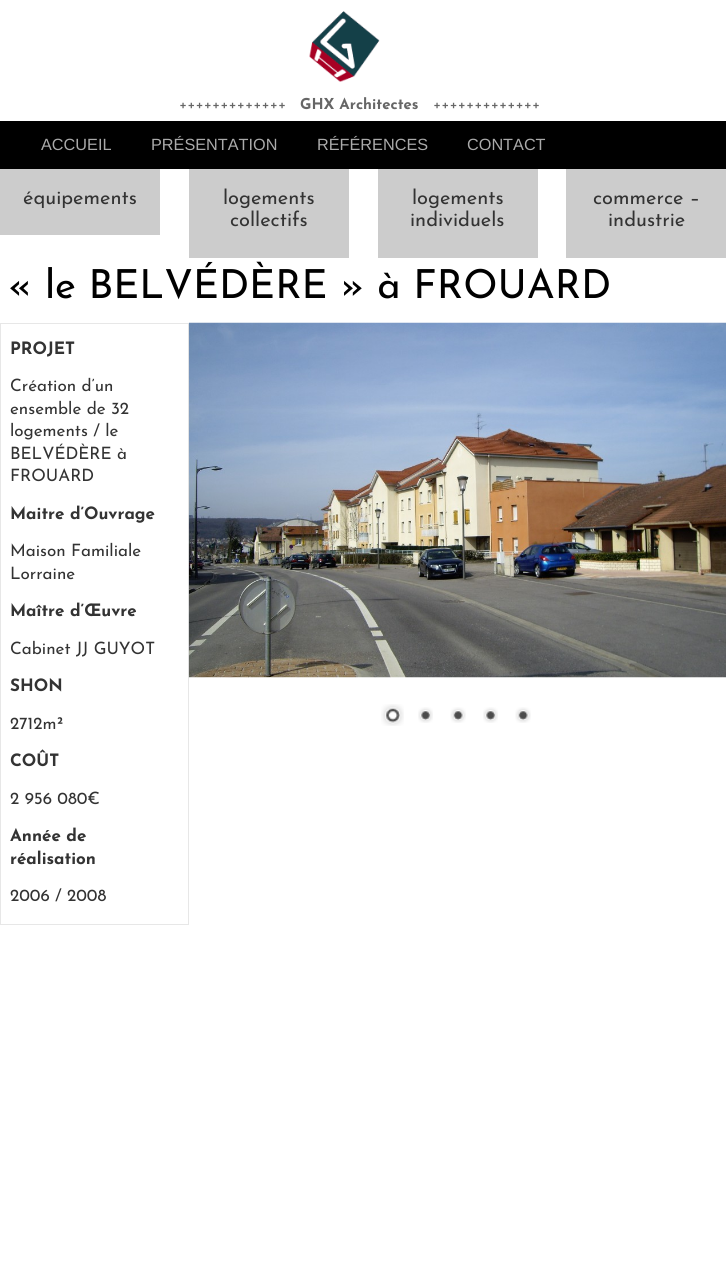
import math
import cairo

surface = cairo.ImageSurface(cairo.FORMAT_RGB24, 726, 1261)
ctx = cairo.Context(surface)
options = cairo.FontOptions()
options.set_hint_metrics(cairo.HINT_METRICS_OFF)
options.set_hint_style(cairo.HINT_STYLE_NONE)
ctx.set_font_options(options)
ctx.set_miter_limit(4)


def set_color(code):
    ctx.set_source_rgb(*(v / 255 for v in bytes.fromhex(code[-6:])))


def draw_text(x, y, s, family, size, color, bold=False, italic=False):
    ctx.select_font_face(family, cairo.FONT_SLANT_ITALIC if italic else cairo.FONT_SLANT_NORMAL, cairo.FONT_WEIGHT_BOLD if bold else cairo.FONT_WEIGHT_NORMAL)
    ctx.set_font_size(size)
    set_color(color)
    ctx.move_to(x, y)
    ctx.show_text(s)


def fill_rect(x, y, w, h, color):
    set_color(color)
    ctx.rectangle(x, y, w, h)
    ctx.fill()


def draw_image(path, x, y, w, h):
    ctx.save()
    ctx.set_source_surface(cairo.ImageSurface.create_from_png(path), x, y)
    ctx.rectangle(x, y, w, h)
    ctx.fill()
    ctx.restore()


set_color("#ffffff")
ctx.paint()
draw_image("assets/img1.png", 309, 11, 71, 71)
draw_text(179, 109, "+++++++++++++", "Josefin Sans", 15, "#666666")
draw_text(300, 109, "GHX Architectes", "Josefin Sans", 15, "#666666", bold=True)
draw_text(433, 109, "+++++++++++++", "Josefin Sans", 15, "#666666")
fill_rect(0, 121, 726, 48, "#000000")
draw_text(41, 150, "ACCUEIL", "Liberation Sans", 16.25, "#aaaaaa")
draw_text(151, 150, "PRÉSENTATION", "Liberation Sans", 16.25, "#aaaaaa")
draw_text(317, 150, "RÉFÉRENCES", "Liberation Sans", 16.25, "#aaaaaa")
draw_text(467, 150, "CONTACT", "Liberation Sans", 16.25, "#aaaaaa")
fill_rect(0, 169, 160, 66, "#cccccc")
draw_text(23, 204, "équipements", "Josefin Sans", 20, "#333333")
fill_rect(189, 169, 160, 89, "#cccccc")
draw_text(223, 204, "logements", "Josefin Sans", 20, "#333333")
draw_text(230, 226, "collectifs", "Josefin Sans", 20, "#333333")
fill_rect(378, 169, 160, 89, "#cccccc")
draw_text(412, 204, "logements", "Josefin Sans", 20, "#333333")
draw_text(410, 226, "individuels", "Josefin Sans", 20, "#333333")
fill_rect(566, 169, 160, 89, "#cccccc")
draw_text(593, 204, "commerce –", "Josefin Sans", 20, "#333333")
draw_text(608, 226, "industrie", "Josefin Sans", 20, "#333333")
draw_text(8, 298, "« le BELVÉDÈRE » à FROUARD", "Josefin Sans", 40, "#000000")
fill_rect(0, 323, 189, 1, "#e7e7e7")
fill_rect(188, 323, 1, 602, "#e7e7e7")
fill_rect(0, 924, 189, 1, "#e7e7e7")
fill_rect(0, 323, 1, 602, "#e7e7e7")
draw_text(10, 354, "PROJET", "Josefin Sans", 17, "#333333", bold=True)
draw_text(10, 391, "Création d’un", "Josefin Sans", 17, "#333333")
draw_text(10, 414, "ensemble de 32", "Josefin Sans", 17, "#333333")
draw_text(10, 436, "logements / le", "Josefin Sans", 17, "#333333")
draw_text(10, 459, "BELVÉDÈRE à", "Josefin Sans", 17, "#333333")
draw_text(10, 481, "FROUARD", "Josefin Sans", 17, "#333333")
draw_text(10, 519, "Maitre d’Ouvrage", "Josefin Sans", 17, "#333333", bold=True)
draw_text(10, 556, "Maison Familiale", "Josefin Sans", 17, "#333333")
draw_text(10, 579, "Lorraine", "Josefin Sans", 17, "#333333")
draw_text(10, 616, "Maître d’Œuvre", "Josefin Sans", 17, "#333333", bold=True)
draw_text(10, 654, "Cabinet JJ GUYOT", "Josefin Sans", 17, "#333333")
draw_text(10, 691, "SHON", "Josefin Sans", 17, "#333333", bold=True)
draw_text(10, 729, "2712m²", "Josefin Sans", 17, "#333333")
draw_text(10, 766, "COÛT", "Josefin Sans", 17, "#333333", bold=True)
draw_text(10, 804, "2 956 080€", "Josefin Sans", 17, "#333333")
draw_text(10, 841, "Année de", "Josefin Sans", 17, "#333333", bold=True)
draw_text(10, 864, "réalisation", "Josefin Sans", 17, "#333333", bold=True)
draw_text(10, 901, "2006 / 2008", "Josefin Sans", 17, "#333333")
draw_image("assets/img2.png", 188, 322, 538, 356)
draw_image("assets/img3.png", 381, 704, 23, 22)
draw_image("assets/img4.png", 418, 707, 15, 16)
draw_image("assets/img5.png", 450, 707, 16, 16)
draw_image("assets/img4.png", 483, 707, 15, 16)
draw_image("assets/img5.png", 515, 707, 16, 16)
surface.write_to_png("output.png")
